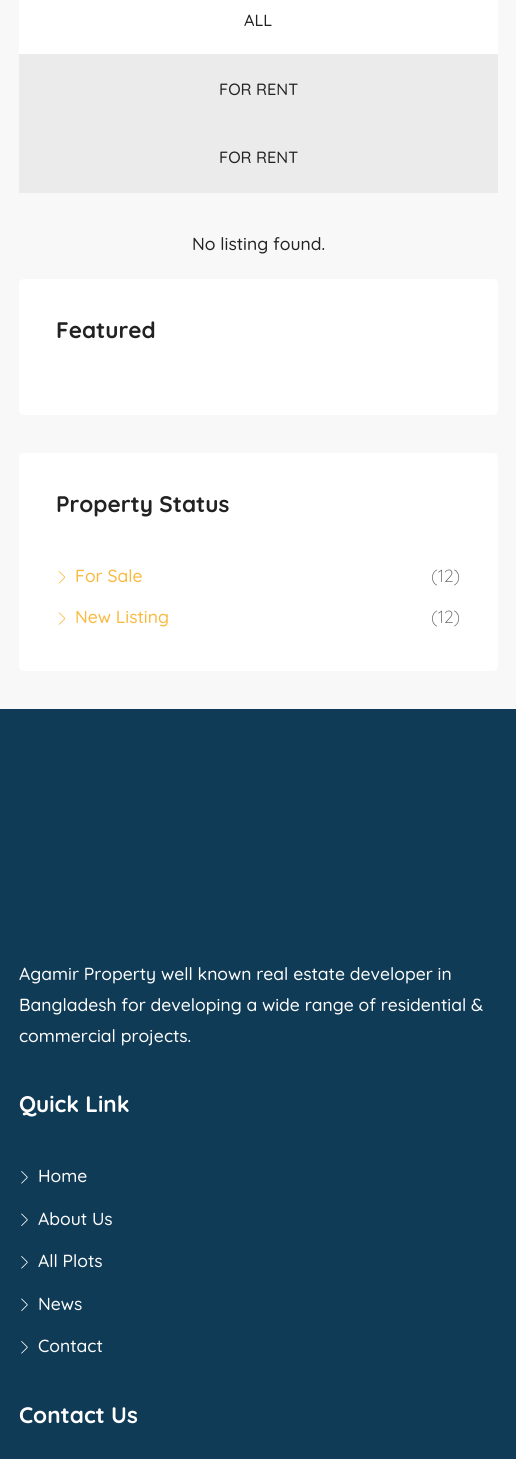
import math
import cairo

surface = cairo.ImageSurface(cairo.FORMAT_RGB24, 516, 1459)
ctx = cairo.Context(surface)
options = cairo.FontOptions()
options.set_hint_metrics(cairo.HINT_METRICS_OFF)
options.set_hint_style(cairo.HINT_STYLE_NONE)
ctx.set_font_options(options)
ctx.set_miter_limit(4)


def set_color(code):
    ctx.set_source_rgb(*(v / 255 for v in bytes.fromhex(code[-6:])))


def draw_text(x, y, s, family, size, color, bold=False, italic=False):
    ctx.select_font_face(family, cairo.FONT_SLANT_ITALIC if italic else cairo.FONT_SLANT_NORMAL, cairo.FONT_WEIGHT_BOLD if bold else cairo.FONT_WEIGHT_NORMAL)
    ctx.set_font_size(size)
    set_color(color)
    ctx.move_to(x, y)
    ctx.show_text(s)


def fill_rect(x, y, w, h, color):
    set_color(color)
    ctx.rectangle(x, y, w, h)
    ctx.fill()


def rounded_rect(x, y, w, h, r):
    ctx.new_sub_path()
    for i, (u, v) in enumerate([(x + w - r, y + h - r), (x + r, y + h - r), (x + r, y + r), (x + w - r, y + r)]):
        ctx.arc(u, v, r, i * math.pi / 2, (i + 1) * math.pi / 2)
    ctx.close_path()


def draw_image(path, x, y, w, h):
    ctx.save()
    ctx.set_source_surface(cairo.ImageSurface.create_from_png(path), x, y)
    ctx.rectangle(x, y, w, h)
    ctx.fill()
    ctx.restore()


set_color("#f8f8f8")
ctx.paint()
fill_rect(19, 0, 479, 54, "#ffffff")
draw_text(244, 26, "ALL", "Quicksand Medium", 16.25, "#222222")
fill_rect(19, 54, 479, 139, "#ebebeb")
draw_text(219, 95, "FOR RENT", "Quicksand Medium", 16.25, "#222222")
draw_text(219, 163, "FOR RENT", "Quicksand Medium", 16.25, "#222222")
draw_text(192, 250, "No listing found.", "Quicksand Medium", 17.5, "#222222")
set_color("#ffffff")
rounded_rect(19, 279, 479, 136, 5)
ctx.fill()
draw_text(56, 338, "Featured", "Quicksand", 22.5, "#222222", bold=True)
set_color("#ffffff")
rounded_rect(19, 453, 479, 218, 5)
ctx.fill()
draw_text(56, 512, "Property Status", "Quicksand", 22.5, "#222222", bold=True)
draw_image("assets/img1.png", 58, 571, 8, 13)
draw_text(75, 582, "For Sale", "Quicksand Medium", 17.5, "#fab93e")
draw_text(431, 582, "(12)", "Quicksand Light", 17.5, "#636363")
draw_image("assets/img2.png", 58, 612, 8, 13)
draw_text(75, 623, "New Listing", "Quicksand Medium", 17.5, "#fab93e")
draw_text(431, 623, "(12)", "Quicksand Light", 17.5, "#636363")
fill_rect(0, 709, 516, 750, "#103b56")
draw_text(19, 980, "Agamir Property well known real estate developer in", "Quicksand Medium", 17.5, "#ffffff")
draw_text(19, 1011, "Bangladesh for developing a wide range of residential &", "Quicksand Medium", 17.5, "#ffffff")
draw_text(19, 1042, "commercial projects.", "Quicksand Medium", 17.5, "#ffffff")
draw_text(19, 1112, "Quick Link", "Quicksand", 22.5, "#ffffff", bold=True)
draw_image("assets/img3.png", 21, 1171, 7, 13)
draw_text(38, 1182, "Home", "Quicksand Medium", 17.5, "#ffffff")
draw_image("assets/img4.png", 21, 1213, 7, 13)
draw_text(38, 1225, "About Us", "Quicksand Medium", 17.5, "#ffffff")
draw_image("assets/img3.png", 21, 1256, 7, 13)
draw_text(38, 1267, "All Plots", "Quicksand Medium", 17.5, "#ffffff")
draw_image("assets/img4.png", 21, 1298, 7, 13)
draw_text(38, 1310, "News", "Quicksand Medium", 17.5, "#ffffff")
draw_image("assets/img3.png", 21, 1341, 7, 13)
draw_text(38, 1352, "Contact", "Quicksand Medium", 17.5, "#ffffff")
draw_text(19, 1423, "Contact Us", "Quicksand", 22.5, "#ffffff", bold=True)
surface.write_to_png("output.png")
